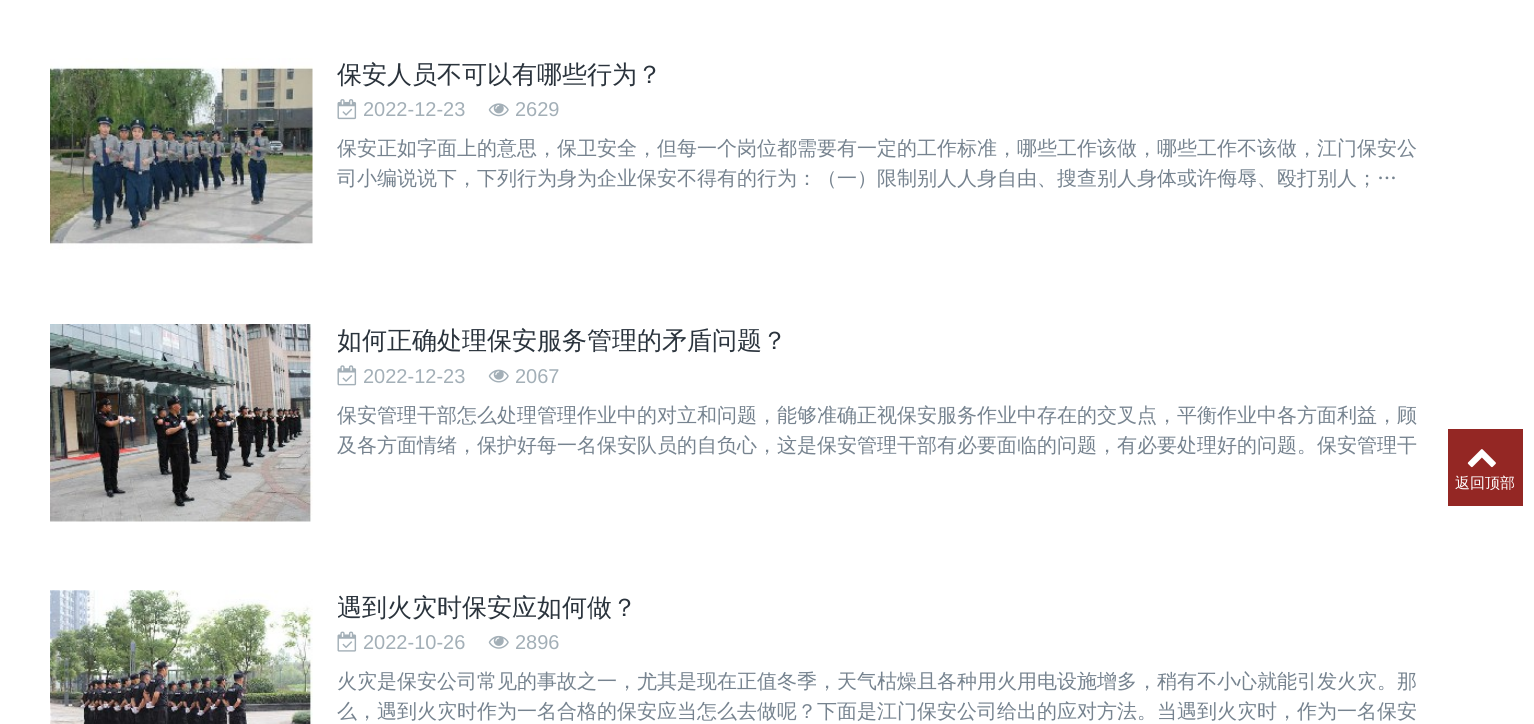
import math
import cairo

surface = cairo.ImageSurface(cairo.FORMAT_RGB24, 1534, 724)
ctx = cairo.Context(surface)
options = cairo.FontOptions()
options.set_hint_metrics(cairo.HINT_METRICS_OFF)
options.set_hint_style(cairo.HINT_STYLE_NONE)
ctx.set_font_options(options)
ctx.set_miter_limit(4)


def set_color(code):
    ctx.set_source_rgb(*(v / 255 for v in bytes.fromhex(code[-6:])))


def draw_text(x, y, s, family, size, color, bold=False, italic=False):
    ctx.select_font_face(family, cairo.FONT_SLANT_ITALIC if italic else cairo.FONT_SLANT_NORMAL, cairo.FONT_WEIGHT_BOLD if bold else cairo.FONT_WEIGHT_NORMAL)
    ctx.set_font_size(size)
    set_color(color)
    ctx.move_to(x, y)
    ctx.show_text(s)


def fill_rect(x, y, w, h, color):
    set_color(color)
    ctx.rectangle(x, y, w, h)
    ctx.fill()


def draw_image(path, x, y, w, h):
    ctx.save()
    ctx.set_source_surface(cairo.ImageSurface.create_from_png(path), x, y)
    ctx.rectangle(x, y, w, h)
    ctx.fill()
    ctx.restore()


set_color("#ffffff")
ctx.paint()
draw_image("assets/img1.png", 50, 58, 263, 192)
draw_text(337, 83, "保安人员不可以有哪些行为？", "WenQuanYi Zen Hei Medium", 25, "#2a333c")
draw_image("assets/img2.png", 337, 99, 20, 21)
draw_text(363, 116, "2022-12-23", "Liberation Sans", 20, "#a3afb7")
draw_image("assets/img3.png", 488, 103, 21, 14)
draw_text(515, 116, "2629", "Liberation Sans", 20, "#a3afb7")
draw_text(337, 155, "保安正如字面上的意思，保卫安全，但每一个岗位都需要有一定的工作标准，哪些工作该做，哪些工作不该做，江门保安公", "WenQuanYi Zen Hei Medium", 20, "#76838f")
draw_text(337, 185, "司小编说说下，下列行为身为企业保安不得有的行为：（一）限制别人人身自由、搜查别人身体或许侮辱、殴打别人；…", "WenQuanYi Zen Hei Medium", 20, "#76838f")
draw_image("assets/img4.png", 50, 324, 263, 198)
ctx.save()
ctx.rectangle(338, 324, 1147, 35)
ctx.clip()
draw_text(337, 349, "如何正确处理保安服务管理的矛盾问题？", "WenQuanYi Zen Hei Medium", 25, "#2a333c")
ctx.restore()
draw_image("assets/img5.png", 337, 365, 20, 21)
draw_text(363, 383, "2022-12-23", "Liberation Sans", 20, "#a3afb7")
draw_image("assets/img6.png", 488, 369, 21, 14)
draw_text(515, 383, "2067", "Liberation Sans", 20, "#a3afb7")
draw_text(337, 422, "保安管理干部怎么处理管理作业中的对立和问题，能够准确正视保安服务作业中存在的交叉点，平衡作业中各方面利益，顾", "WenQuanYi Zen Hei Medium", 20, "#76838f")
draw_text(337, 452, "及各方面情绪，保护好每一名保安队员的自负心，这是保安管理干部有必要面临的问题，有必要处理好的问题。保安管理干", "WenQuanYi Zen Hei Medium", 20, "#76838f")
draw_image("assets/img7.png", 50, 590, 263, 134)
ctx.save()
ctx.rectangle(338, 590, 1147, 35)
ctx.clip()
draw_text(337, 616, "遇到火灾时保安应如何做？", "WenQuanYi Zen Hei Medium", 25, "#2a333c")
ctx.restore()
draw_image("assets/img8.png", 337, 631, 20, 21)
draw_text(363, 649, "2022-10-26", "Liberation Sans", 20, "#a3afb7")
draw_image("assets/img9.png", 488, 635, 21, 14)
draw_text(515, 649, "2896", "Liberation Sans", 20, "#a3afb7")
draw_text(337, 688, "火灾是保安公司常见的事故之一，尤其是现在正值冬季，天气枯燥且各种用火用电设施增多，稍有不小心就能引发火灾。那", "WenQuanYi Zen Hei Medium", 20, "#76838f")
draw_text(337, 718, "么，遇到火灾时作为一名合格的保安应当怎么去做呢？下面是江门保安公司给出的应对方法。当遇到火灾时，作为一名保安", "WenQuanYi Zen Hei Medium", 20, "#76838f")
fill_rect(1448, 429, 75, 77, "#942724")
draw_image("assets/img10.png", 1467, 449, 29, 19)
draw_text(1455, 488, "返回顶部", "WenQuanYi Zen Hei Medium", 15, "#ffffff")
surface.write_to_png("output.png")
